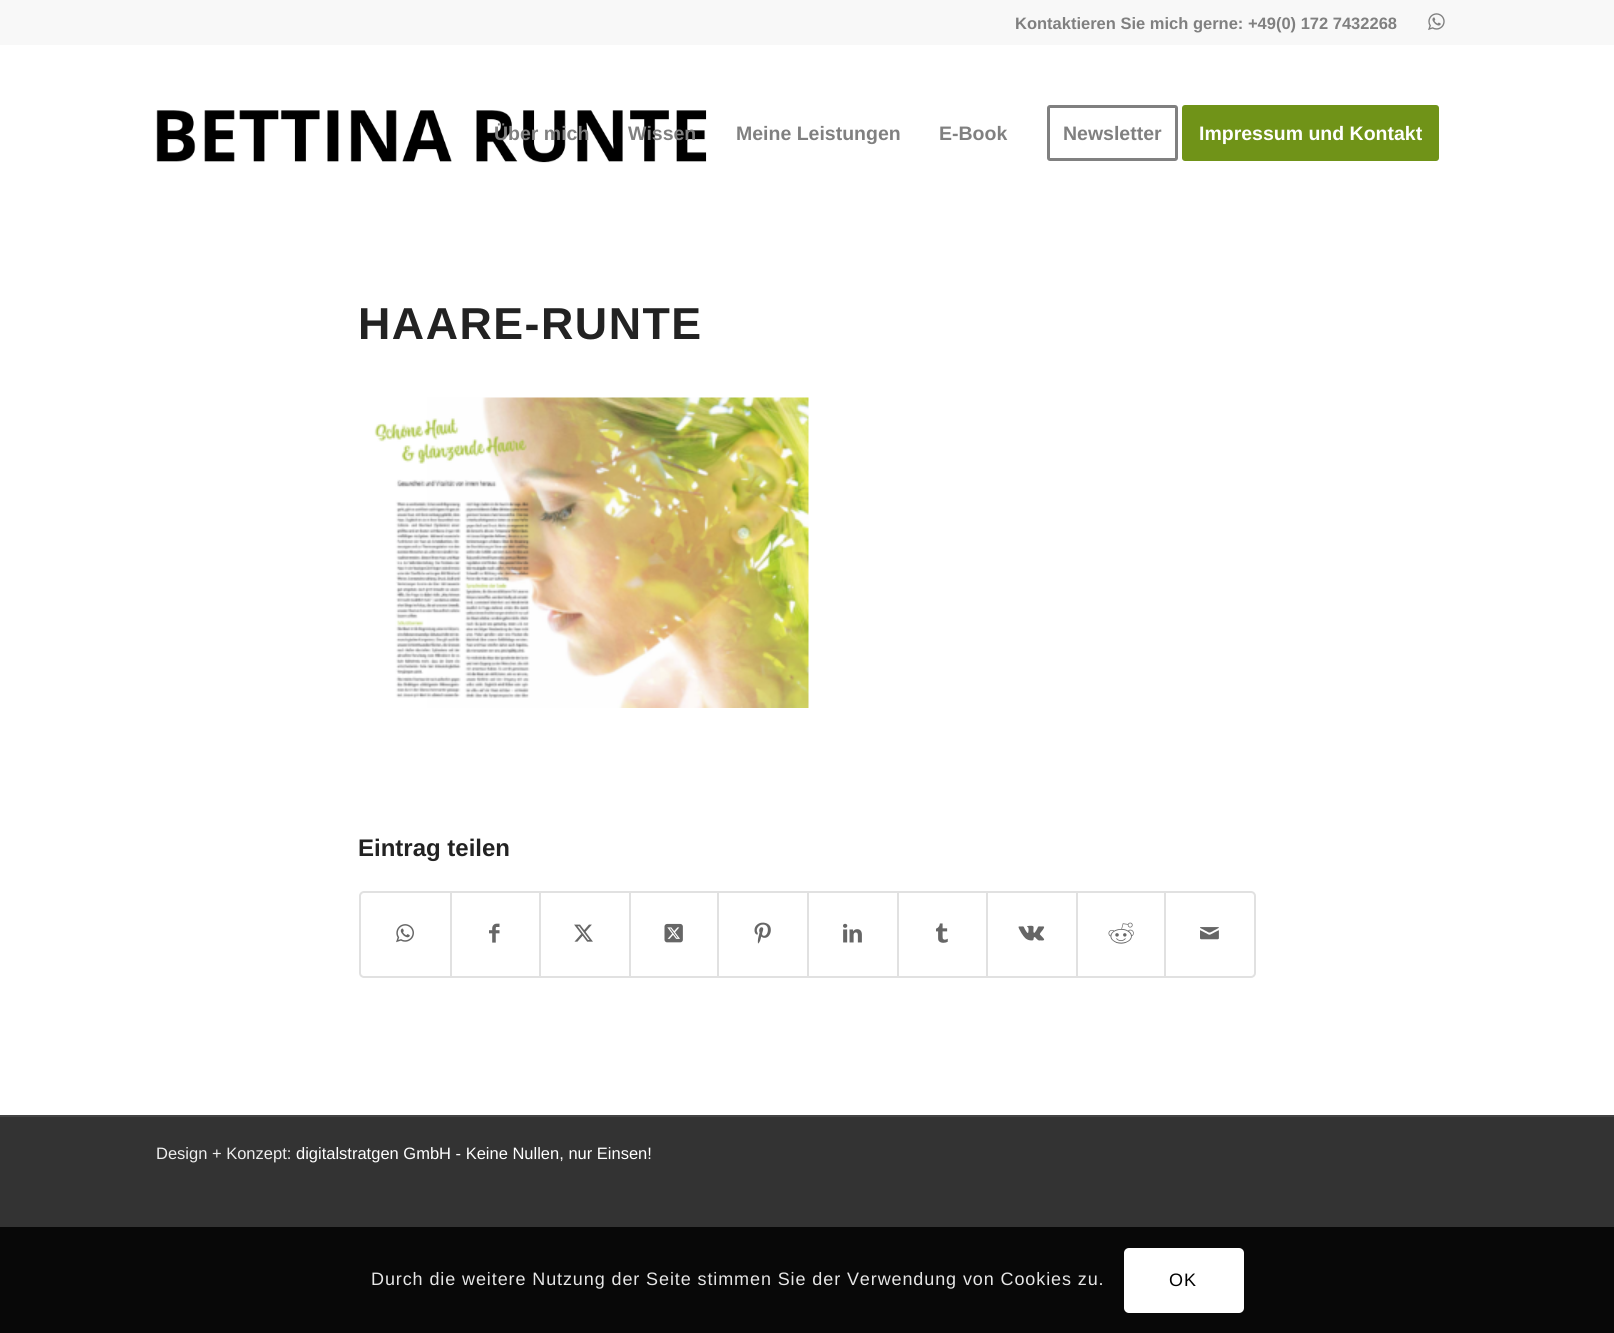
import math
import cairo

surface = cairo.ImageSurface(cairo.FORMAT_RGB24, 1614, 1333)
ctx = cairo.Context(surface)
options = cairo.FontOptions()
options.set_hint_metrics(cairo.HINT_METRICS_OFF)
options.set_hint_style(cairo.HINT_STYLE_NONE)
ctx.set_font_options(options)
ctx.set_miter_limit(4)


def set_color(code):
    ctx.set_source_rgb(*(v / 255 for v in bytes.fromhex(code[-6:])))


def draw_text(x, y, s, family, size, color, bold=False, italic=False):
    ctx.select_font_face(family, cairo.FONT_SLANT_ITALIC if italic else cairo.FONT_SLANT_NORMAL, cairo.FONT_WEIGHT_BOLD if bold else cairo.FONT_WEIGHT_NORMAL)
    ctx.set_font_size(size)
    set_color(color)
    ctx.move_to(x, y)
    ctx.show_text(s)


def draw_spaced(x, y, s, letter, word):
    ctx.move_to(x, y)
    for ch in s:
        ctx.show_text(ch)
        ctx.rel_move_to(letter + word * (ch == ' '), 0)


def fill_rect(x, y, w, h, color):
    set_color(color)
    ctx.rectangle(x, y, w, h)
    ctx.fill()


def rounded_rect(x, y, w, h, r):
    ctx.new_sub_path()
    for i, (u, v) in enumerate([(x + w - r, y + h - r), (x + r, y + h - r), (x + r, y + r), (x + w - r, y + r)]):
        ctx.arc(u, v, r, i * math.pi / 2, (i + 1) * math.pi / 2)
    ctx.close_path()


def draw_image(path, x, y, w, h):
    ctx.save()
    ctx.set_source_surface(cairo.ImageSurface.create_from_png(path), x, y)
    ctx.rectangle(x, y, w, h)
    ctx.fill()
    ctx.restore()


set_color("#333333")
ctx.paint()
fill_rect(0, 45, 1614, 1070, "#ffffff")
fill_rect(0, 0, 1614, 45, "#f8f8f8")
draw_text(1015, 29, "Kontaktieren Sie mich gerne: +49(0) 172 7432268", "Liberation Sans", 16.5, "#808080", bold=True)
draw_image("assets/img1.png", 1428, 13, 17, 17)
draw_image("assets/img2.png", 156, 110, 551, 53)
draw_text(494, 140, "Über mich", "Liberation Sans", 19.5, "#808080", bold=True)
draw_text(628, 140, "Wissen", "Liberation Sans", 19.5, "#808080", bold=True)
draw_text(736, 140, "Meine Leistungen", "Liberation Sans", 19.5, "#808080", bold=True)
draw_text(939, 140, "E-Book", "Liberation Sans", 19.5, "#808080", bold=True)
rounded_rect(1048.5, 106.5, 128, 53, 1.5)
ctx.set_line_width(3)
ctx.stroke()
draw_text(1063, 140, "Newsletter", "Liberation Sans", 19.5, "#808080", bold=True)
set_color("#709318")
rounded_rect(1183.5, 106.5, 254, 53, 1.5)
ctx.fill_preserve()
ctx.stroke()
draw_text(1199, 140, "Impressum und Kontakt", "Liberation Sans", 19.5, "#ffffff", bold=True)
ctx.set_font_size(44.75)
set_color("#222222")
draw_spaced(358, 339, "HAARE-RUNTE", 1.5, 0)
draw_image("assets/img3.png", 374, 397, 435, 311)
draw_text(358, 856, "Eintrag teilen", "Liberation Sans", 24, "#222222", bold=True)
rounded_rect(360, 892, 895, 85, 4)
set_color("#e1e1e1")
ctx.set_line_width(2)
ctx.stroke()
draw_image("assets/img4.png", 396, 924, 18, 19)
fill_rect(450, 893, 2, 84, "#e1e1e1")
draw_image("assets/img5.png", 489, 923, 11, 20)
fill_rect(539, 893, 2, 84, "#e1e1e1")
draw_image("assets/img6.png", 574, 924, 19, 18)
fill_rect(629, 893, 2, 84, "#e1e1e1")
draw_image("assets/img7.png", 664, 923, 19, 20)
fill_rect(717, 893, 2, 84, "#e1e1e1")
draw_image("assets/img8.png", 754, 922, 17, 22)
fill_rect(807, 893, 2, 84, "#e1e1e1")
draw_image("assets/img9.png", 843, 923, 19, 20)
fill_rect(897, 893, 2, 84, "#e1e1e1")
draw_image("assets/img10.png", 936, 923, 12, 20)
fill_rect(986, 893, 2, 84, "#e1e1e1")
draw_image("assets/img11.png", 1018, 925, 27, 16)
fill_rect(1076, 893, 2, 84, "#e1e1e1")
draw_image("assets/img12.png", 1108, 922, 26, 22)
fill_rect(1164, 893, 2, 84, "#e1e1e1")
draw_image("assets/img13.png", 1200, 927, 19, 13)
fill_rect(0, 1115, 1614, 2, "#444444")
draw_text(156, 1159, "Design + Konzept:", "Liberation Sans", 16.5, "#eeeeee")
draw_text(296, 1159, "digitalstratgen GmbH - Keine Nullen, nur Einsen!", "Liberation Sans", 16.5, "#ffffff")
fill_rect(0, 1227, 1614, 106, "#080808")
ctx.set_font_size(18)
set_color("#e6e6e6")
draw_spaced(371, 1285, "Durch die weitere Nutzung der Seite stimmen Sie der Verwendung von Cookies zu.", 0.9, 0)
set_color("#ffffff")
rounded_rect(1124, 1248, 120, 65, 5)
ctx.fill()
set_color("#000000")
draw_spaced(1169, 1286, "OK", 0.9, 0)
surface.write_to_png("output.png")
